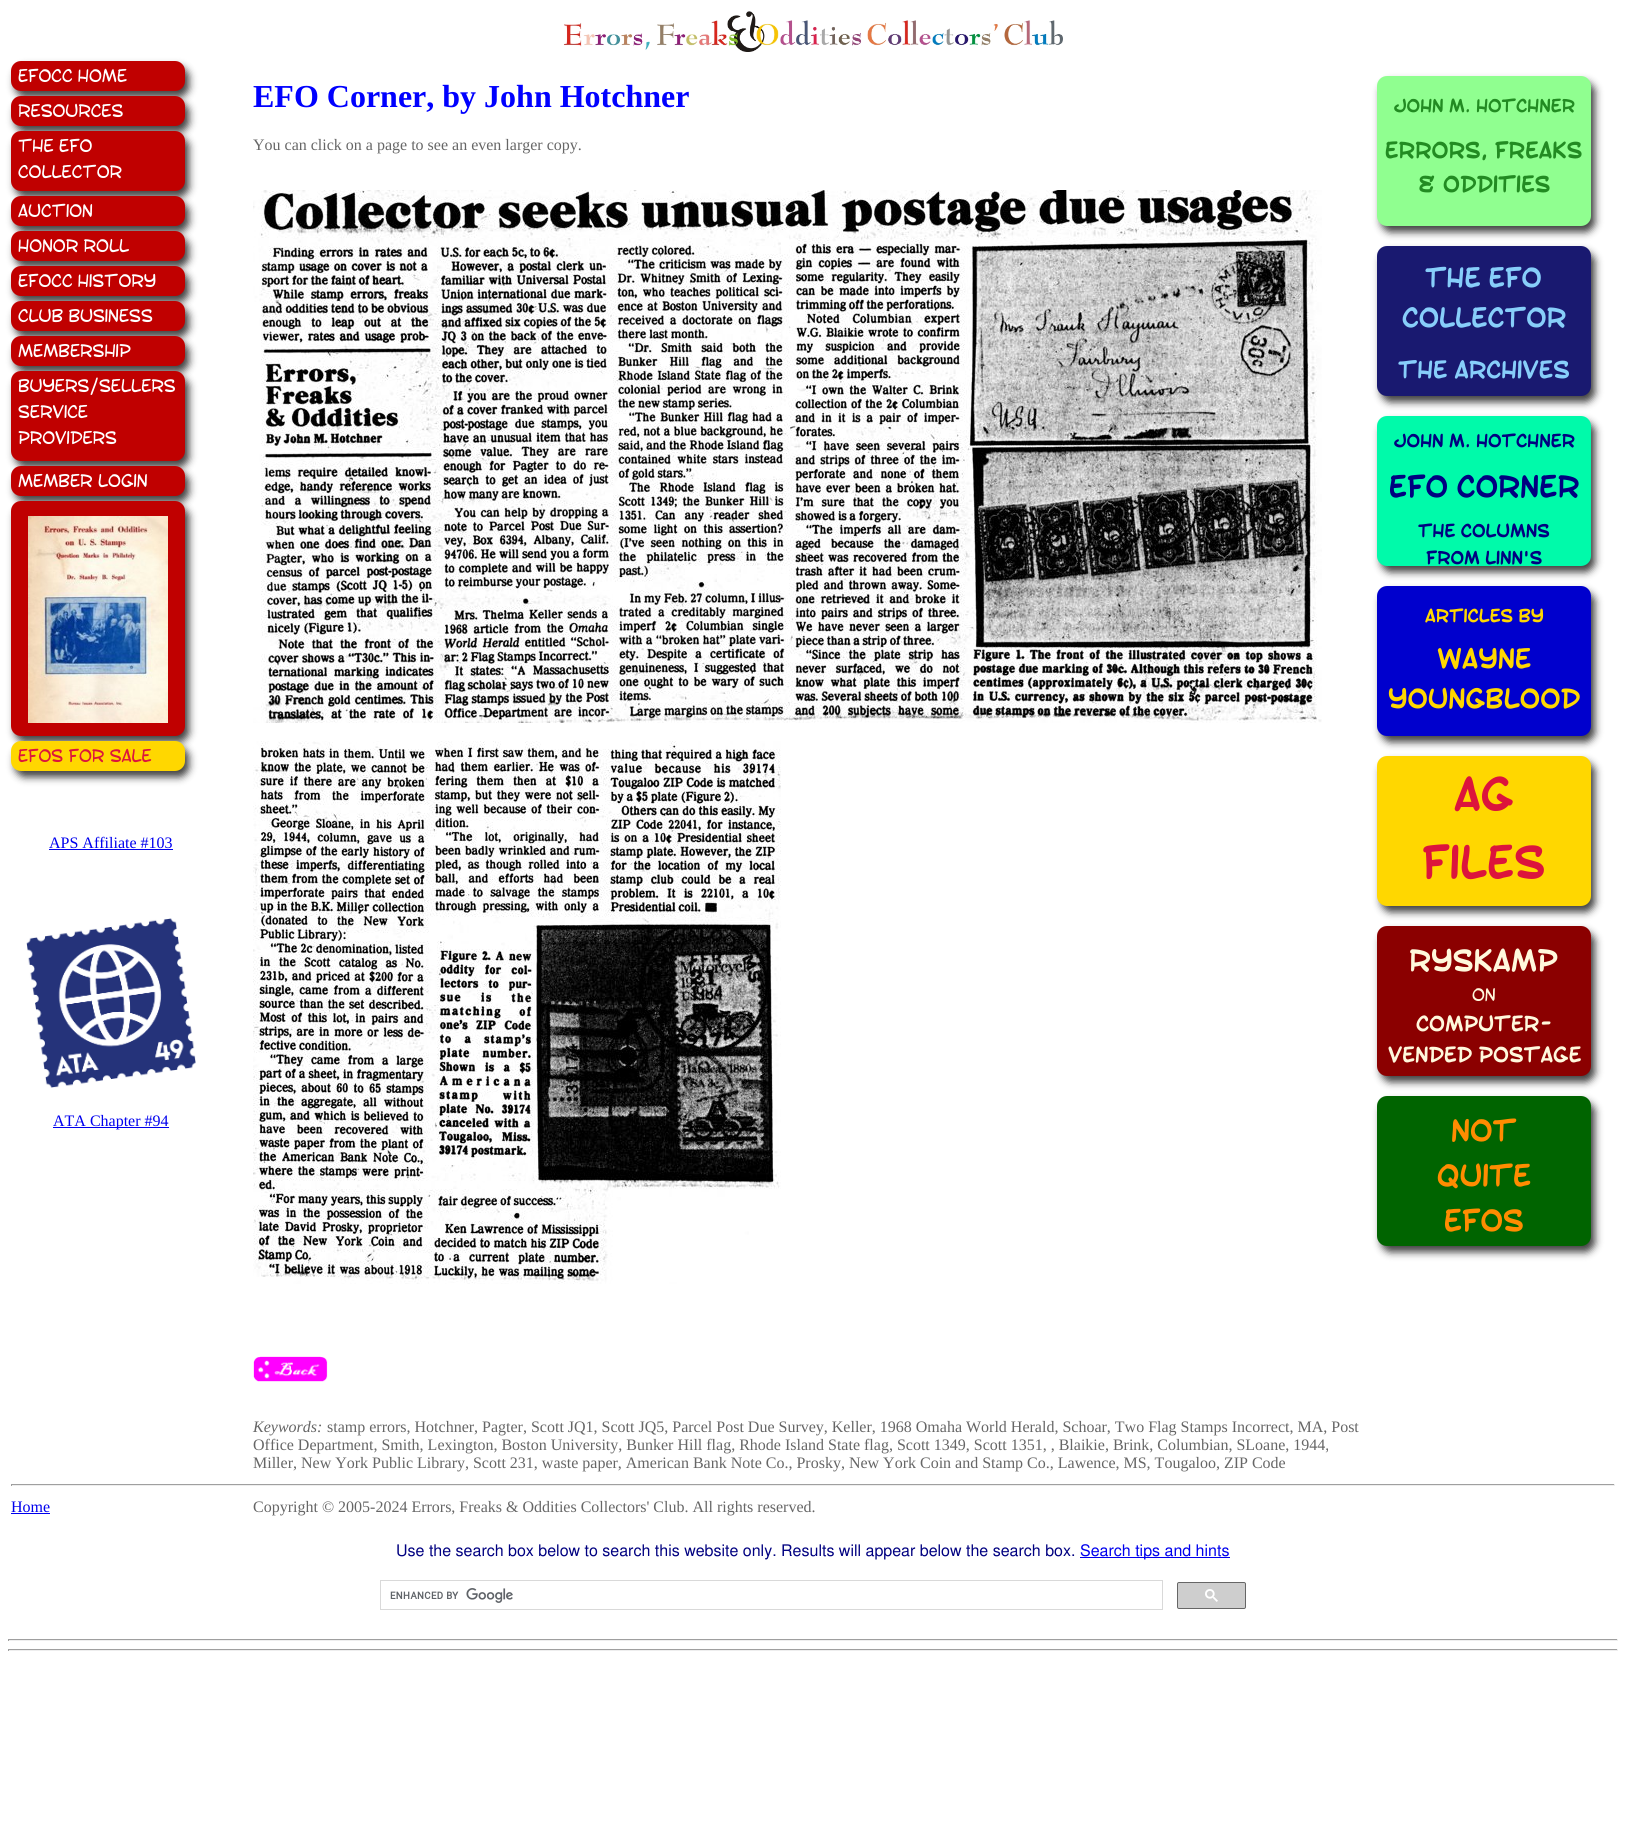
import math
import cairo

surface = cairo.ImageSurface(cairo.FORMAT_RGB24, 1626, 1832)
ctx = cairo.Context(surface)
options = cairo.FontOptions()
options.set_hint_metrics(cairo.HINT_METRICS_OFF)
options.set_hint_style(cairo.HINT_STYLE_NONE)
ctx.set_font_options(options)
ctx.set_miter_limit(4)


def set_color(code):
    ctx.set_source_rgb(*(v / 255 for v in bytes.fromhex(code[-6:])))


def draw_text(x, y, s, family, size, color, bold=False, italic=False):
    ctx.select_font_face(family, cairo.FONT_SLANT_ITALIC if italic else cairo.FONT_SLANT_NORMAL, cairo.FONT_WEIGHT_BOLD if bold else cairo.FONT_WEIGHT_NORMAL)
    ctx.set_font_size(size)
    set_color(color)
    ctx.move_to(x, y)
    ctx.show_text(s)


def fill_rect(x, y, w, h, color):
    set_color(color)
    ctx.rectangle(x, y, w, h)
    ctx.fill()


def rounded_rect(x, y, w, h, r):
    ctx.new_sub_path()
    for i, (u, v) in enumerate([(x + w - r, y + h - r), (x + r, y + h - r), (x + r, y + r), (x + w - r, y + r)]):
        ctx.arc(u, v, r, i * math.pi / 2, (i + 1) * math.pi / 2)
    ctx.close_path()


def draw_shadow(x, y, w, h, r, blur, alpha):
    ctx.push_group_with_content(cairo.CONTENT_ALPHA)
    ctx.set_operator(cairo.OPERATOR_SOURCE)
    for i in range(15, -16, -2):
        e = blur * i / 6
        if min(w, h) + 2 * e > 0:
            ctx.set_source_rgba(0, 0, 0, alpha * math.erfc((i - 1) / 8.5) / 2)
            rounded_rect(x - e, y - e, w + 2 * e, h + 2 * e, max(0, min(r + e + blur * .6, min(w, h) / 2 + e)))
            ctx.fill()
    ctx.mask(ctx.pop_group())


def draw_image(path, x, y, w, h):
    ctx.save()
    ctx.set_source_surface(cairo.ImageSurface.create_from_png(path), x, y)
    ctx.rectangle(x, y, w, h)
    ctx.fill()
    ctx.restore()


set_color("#ffffff")
ctx.paint()
draw_image("assets/img1.png", 563, 11, 500, 41)
set_color("#000000")
draw_shadow(15, 67, 174, 30, 10, 4, 0.75)
set_color("#c00000")
rounded_rect(11, 61, 174, 30, 10)
ctx.fill()
draw_text(18, 82, "EFOCC Home", "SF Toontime", 19.25, "#ffffff")
set_color("#000000")
draw_shadow(15, 102, 174, 30, 10, 4, 0.75)
set_color("#c00000")
rounded_rect(11, 96, 174, 30, 10)
ctx.fill()
draw_text(18, 117, "Resources", "SF Toontime", 19.25, "#ffffff")
set_color("#000000")
draw_shadow(15, 137, 174, 60, 10, 4, 0.75)
set_color("#c00000")
rounded_rect(11, 131, 174, 60, 10)
ctx.fill()
draw_text(18, 152, "The EFO", "SF Toontime", 19.25, "#ffffff")
draw_text(18, 178, "Collector", "SF Toontime", 19.25, "#ffffff")
set_color("#000000")
draw_shadow(15, 202, 174, 30, 10, 4, 0.75)
set_color("#c00000")
rounded_rect(11, 196, 174, 30, 10)
ctx.fill()
draw_text(18, 217, "Auction", "SF Toontime", 19.25, "#ffffff")
set_color("#000000")
draw_shadow(15, 237, 174, 30, 10, 4, 0.75)
set_color("#c00000")
rounded_rect(11, 231, 174, 30, 10)
ctx.fill()
draw_text(18, 252, "Honor Roll", "SF Toontime", 19.25, "#ffffff")
set_color("#000000")
draw_shadow(15, 272, 174, 30, 10, 4, 0.75)
set_color("#c00000")
rounded_rect(11, 266, 174, 30, 10)
ctx.fill()
draw_text(18, 287, "EFOCC History", "SF Toontime", 19.25, "#ffffff")
set_color("#000000")
draw_shadow(15, 307, 174, 30, 10, 4, 0.75)
set_color("#c00000")
rounded_rect(11, 301, 174, 30, 10)
ctx.fill()
draw_text(18, 322, "Club Business", "SF Toontime", 19.25, "#ffffff")
set_color("#000000")
draw_shadow(15, 342, 174, 30, 10, 4, 0.75)
set_color("#c00000")
rounded_rect(11, 336, 174, 30, 10)
ctx.fill()
draw_text(18, 357, "Membership", "SF Toontime", 19.25, "#ffffff")
set_color("#000000")
draw_shadow(15, 377, 174, 90, 10, 4, 0.75)
set_color("#c00000")
rounded_rect(11, 371, 174, 90, 10)
ctx.fill()
draw_text(18, 392, "Buyers/Sellers", "SF Toontime", 19.25, "#ffffff")
draw_text(18, 418, "Service", "SF Toontime", 19.25, "#ffffff")
draw_text(18, 444, "Providers", "SF Toontime", 19.25, "#ffffff")
set_color("#000000")
draw_shadow(15, 472, 174, 30, 10, 4, 0.75)
set_color("#c00000")
rounded_rect(11, 466, 174, 30, 10)
ctx.fill()
draw_text(18, 487, "Member Login", "SF Toontime", 19.25, "#ffffff")
set_color("#000000")
draw_shadow(15, 507, 174, 235, 10, 4, 0.75)
set_color("#c00000")
rounded_rect(11, 501, 174, 235, 10)
ctx.fill()
draw_image("assets/img2.png", 28, 516, 140, 207)
set_color("#000000")
draw_shadow(15, 747, 174, 30, 10, 4, 0.75)
set_color("#ffd700")
rounded_rect(11, 741, 174, 30, 10)
ctx.fill()
draw_text(18, 762, "EFOS for Sale", "SF Toontime", 19.25, "#dc143c")
draw_text(49, 848, "APS Affiliate #103", "Liberation Serif", 16, "#0000ee")
fill_rect(49, 849, 124, 1, "#0000ee")
draw_image("assets/img3.png", 26, 918, 170, 170)
fill_rect(53, 1127, 116, 1, "#0000ee")
draw_text(53, 1126, "ATA Chapter #94", "Liberation Serif", 16, "#0000ee")
draw_text(253, 107, "EFO Corner, by John Hotchner", "Liberation Serif", 32, "#0000ff", bold=True)
draw_text(253, 150, "You can click on a page to see an even larger copy.", "Liberation Serif", 16, "#666666")
draw_image("assets/img4.png", 253, 190, 1069, 533)
draw_image("assets/img5.png", 253, 741, 528, 543)
draw_image("assets/img6.png", 253, 1356, 75, 26)
draw_text(253, 1432, "Keywords:", "Liberation Serif", 16, "#666666", italic=True)
draw_text(327, 1432, "stamp errors, Hotchner, Pagter, Scott JQ1, Scott JQ5, Parcel Post Due Survey, Keller, 1968 Omaha World Herald, Schoar, Two Flag Stamps Incorrect, MA, Post", "Liberation Serif", 16, "#666666")
draw_text(253, 1450, "Office Department, Smith, Lexington, Boston University, Bunker Hill flag, Rhode Island State flag, Scott 1349, Scott 1351, , Blaikie, Brink, Columbian, SLoane, 1944,", "Liberation Serif", 16, "#666666")
draw_text(253, 1468, "Miller, New York Public Library, Scott 231, waste paper, American Bank Note Co., Prosky, New York Coin and Stamp Co., Lawence, MS, Tougaloo, ZIP Code", "Liberation Serif", 16, "#666666")
set_color("#000000")
draw_shadow(1381, 82, 214, 150, 10, 4, 0.75)
set_color("#90ff90")
rounded_rect(1377, 76, 214, 150, 10)
ctx.fill()
draw_text(1394, 112, "John M. Hotchner", "SF Toontime", 19.25, "#228b22", bold=True)
draw_text(1385, 158, "Errors, Freaks", "SF Toontime", 24, "#228b22", bold=True)
draw_text(1417, 192, "& Oddities", "SF Toontime", 24, "#228b22", bold=True)
set_color("#000000")
draw_shadow(1381, 252, 214, 150, 10, 4, 0.75)
set_color("#191970")
rounded_rect(1377, 246, 214, 150, 10)
ctx.fill()
draw_text(1425, 287, "The EFO", "SF Toontime", 28.75, "#87cefa", bold=True)
draw_text(1402, 327, "Collector", "SF Toontime", 28.75, "#87cefa", bold=True)
draw_text(1398, 378, "The Archives", "SF Toontime", 25.5, "#87cefa", bold=True)
set_color("#000000")
draw_shadow(1381, 422, 214, 150, 10, 4, 0.75)
set_color("#00faaa")
rounded_rect(1377, 416, 214, 150, 10)
ctx.fill()
draw_text(1394, 447, "John M. Hotchner", "SF Toontime", 19.25, "#000080", bold=True)
draw_text(1389, 497, "EFO Corner", "SF Toontime", 32, "#000080", bold=True)
draw_text(1418, 537, "The Columns", "SF Toontime", 19.25, "#000080", bold=True)
draw_text(1426, 564, "from Linn's", "SF Toontime", 19.25, "#000080", bold=True)
set_color("#000000")
draw_shadow(1381, 592, 214, 150, 10, 4, 0.75)
set_color("#0000cd")
rounded_rect(1377, 586, 214, 150, 10)
ctx.fill()
draw_text(1425, 622, "Articles By", "SF Toontime", 19.25, "#ffd700", bold=True)
draw_text(1437, 668, "Wayne", "SF Toontime", 28.75, "#ffd700", bold=True)
draw_text(1388, 708, "Youngblood", "SF Toontime", 28.75, "#ffd700", bold=True)
set_color("#000000")
draw_shadow(1381, 762, 214, 150, 10, 4, 0.75)
set_color("#ffd700")
rounded_rect(1377, 756, 214, 150, 10)
ctx.fill()
draw_text(1454, 810, "AG", "SF Toontime", 48, "#dc143c", bold=True)
draw_text(1422, 878, "Files", "SF Toontime", 48, "#dc143c", bold=True)
set_color("#000000")
draw_shadow(1381, 932, 214, 150, 10, 4, 0.75)
set_color("#8b0000")
rounded_rect(1377, 926, 214, 150, 10)
ctx.fill()
draw_text(1409, 971, "Ryskamp", "SF Toontime", 32, "#fff8dc", bold=True)
draw_text(1472, 1001, "on", "SF Toontime", 19.25, "#fff8dc")
draw_text(1416, 1031, "Computer-", "SF Toontime", 22.5, "#fff8dc", bold=True)
draw_text(1388, 1062, "Vended Postage", "SF Toontime", 22.5, "#fff8dc", bold=True)
set_color("#000000")
draw_shadow(1381, 1102, 214, 150, 10, 4, 0.75)
set_color("#006400")
rounded_rect(1377, 1096, 214, 150, 10)
ctx.fill()
draw_text(1451, 1141, "Not", "SF Toontime", 32, "#ff8c00", bold=True)
draw_text(1437, 1186, "quite", "SF Toontime", 32, "#ff8c00", bold=True)
draw_text(1444, 1231, "EFOs", "SF Toontime", 32, "#ff8c00", bold=True)
fill_rect(11, 1484, 1604, 1, "#9f9f9f")
fill_rect(1614, 1484, 1, 2, "#eeeeee")
fill_rect(11, 1485, 1604, 1, "#eeeeee")
fill_rect(11, 1484, 1, 2, "#9f9f9f")
draw_text(11, 1512, "Home", "Liberation Serif", 16, "#0000ee")
fill_rect(11, 1513, 39, 1, "#0000ee")
draw_text(253, 1512, "Copyright © 2005-2024 Errors, Freaks & Oddities Collectors' Club. All rights reserved.", "Liberation Serif", 16, "#666666")
draw_text(396, 1556, "Use the search box below to search this website only. Results will appear below the search box.", "FreeSans", 16, "#000080")
fill_rect(1080, 1557, 150, 1, "#0000ee")
draw_text(1080, 1556, "Search tips and hints", "FreeSans", 16, "#0000ee")
ctx.rectangle(380.5, 1580.5, 782, 29)
set_color("#d9d9d9")
ctx.set_line_width(1)
ctx.stroke()
draw_image("assets/img7.png", 390, 1588, 123, 15)
set_color("#cecece")
rounded_rect(1177.5, 1582.5, 68, 26, 1.5)
ctx.fill_preserve()
set_color("#666666")
ctx.stroke()
draw_image("assets/img8.png", 1205, 1589, 13, 13)
fill_rect(8, 1639, 1610, 1, "#9f9f9f")
fill_rect(1617, 1639, 1, 2, "#eeeeee")
fill_rect(8, 1640, 1610, 1, "#eeeeee")
fill_rect(8, 1639, 1, 2, "#9f9f9f")
fill_rect(8, 1649, 1610, 1, "#9f9f9f")
fill_rect(1617, 1649, 1, 2, "#eeeeee")
fill_rect(8, 1650, 1610, 1, "#eeeeee")
fill_rect(8, 1649, 1, 2, "#9f9f9f")
surface.write_to_png("output.png")
